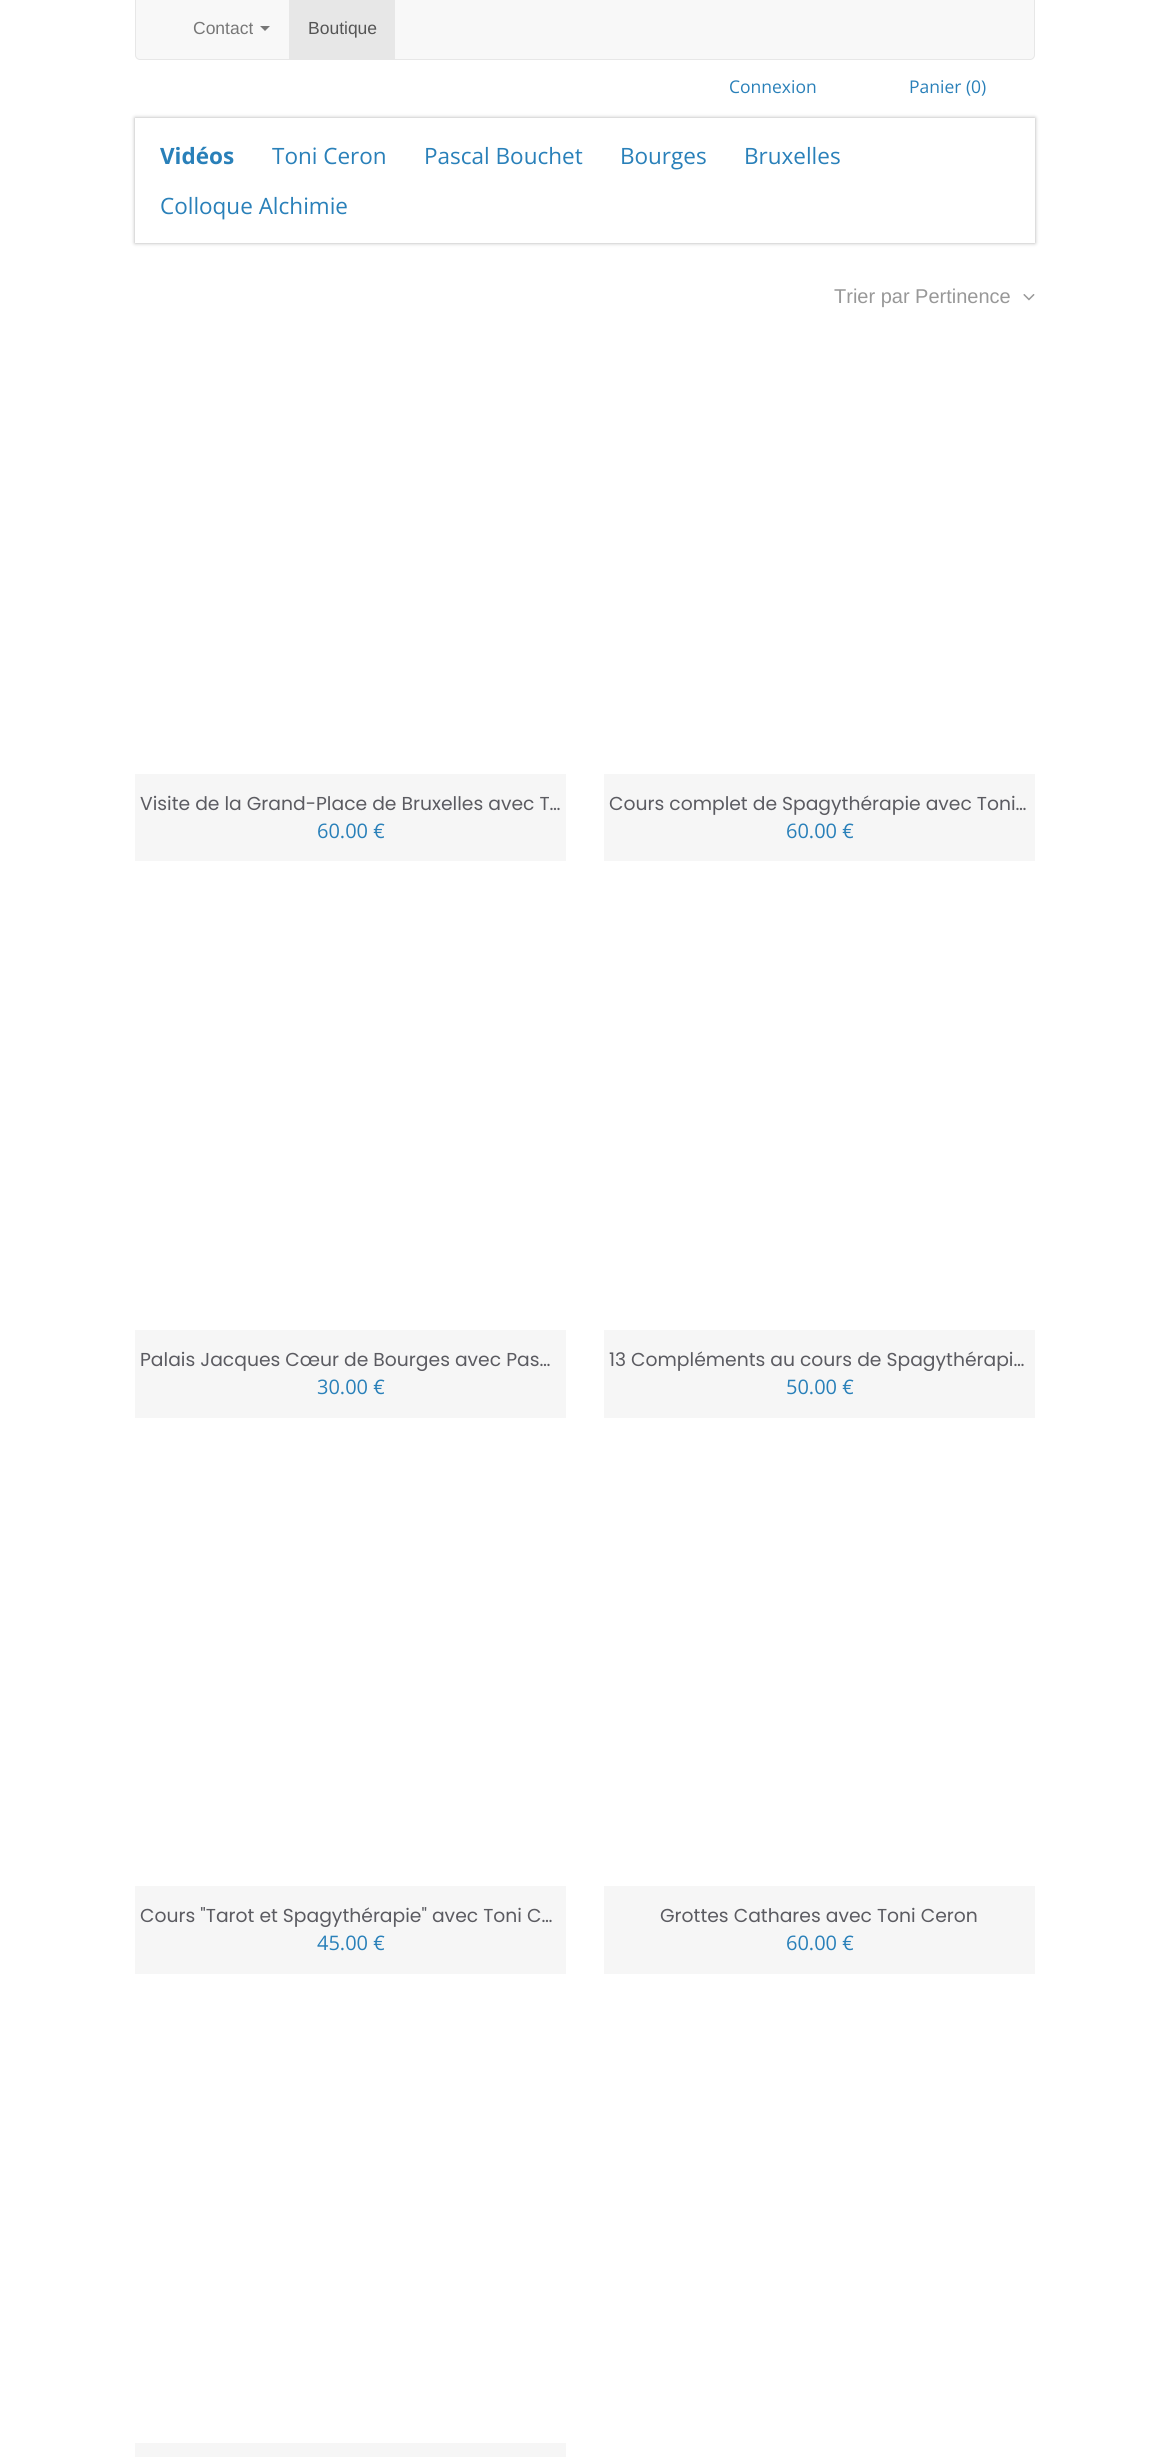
import math
import cairo

surface = cairo.ImageSurface(cairo.FORMAT_RGB24, 1169, 2457)
ctx = cairo.Context(surface)
options = cairo.FontOptions()
options.set_hint_metrics(cairo.HINT_METRICS_OFF)
options.set_hint_style(cairo.HINT_STYLE_NONE)
ctx.set_font_options(options)
ctx.set_miter_limit(4)


def set_color(code):
    ctx.set_source_rgb(*(v / 255 for v in bytes.fromhex(code[-6:])))


def draw_text(x, y, s, family, size, color, bold=False, italic=False):
    ctx.select_font_face(family, cairo.FONT_SLANT_ITALIC if italic else cairo.FONT_SLANT_NORMAL, cairo.FONT_WEIGHT_BOLD if bold else cairo.FONT_WEIGHT_NORMAL)
    ctx.set_font_size(size)
    set_color(color)
    ctx.move_to(x, y)
    ctx.show_text(s)


def fill_rect(x, y, w, h, color):
    set_color(color)
    ctx.rectangle(x, y, w, h)
    ctx.fill()


def rounded_rect(x, y, w, h, r):
    ctx.new_sub_path()
    for i, (u, v) in enumerate([(x + w - r, y + h - r), (x + r, y + h - r), (x + r, y + r), (x + w - r, y + r)]):
        ctx.arc(u, v, r, i * math.pi / 2, (i + 1) * math.pi / 2)
    ctx.close_path()


def draw_shadow(x, y, w, h, r, blur, alpha):
    ctx.push_group_with_content(cairo.CONTENT_ALPHA)
    ctx.set_operator(cairo.OPERATOR_SOURCE)
    for i in range(15, -16, -2):
        e = blur * i / 6
        if min(w, h) + 2 * e > 0:
            ctx.set_source_rgba(0, 0, 0, alpha * math.erfc((i - 1) / 8.5) / 2)
            rounded_rect(x - e, y - e, w + 2 * e, h + 2 * e, max(0, min(r + e + blur * .6, min(w, h) / 2 + e)))
            ctx.fill()
    ctx.mask(ctx.pop_group())


def draw_image(path, x, y, w, h):
    ctx.save()
    ctx.set_source_surface(cairo.ImageSurface.create_from_png(path), x, y)
    ctx.rectangle(x, y, w, h)
    ctx.fill()
    ctx.restore()


set_color("#ffffff")
ctx.paint()
set_color("#f8f8f8")
rounded_rect(135.5, -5.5, 899, 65, 4.5)
ctx.fill_preserve()
set_color("#e7e7e7")
ctx.set_line_width(1)
ctx.stroke()
draw_text(193, 34, "Contact", "Liberation Sans", 17.5, "#777777")
ctx.new_path()
ctx.move_to(260, 26)
ctx.line_to(270, 26)
ctx.line_to(265, 31)
ctx.close_path()
ctx.fill()
fill_rect(289, 0, 106, 59, "#e7e7e7")
draw_text(308, 34, "Boutique", "Liberation Sans", 17.5, "#555555")
draw_text(729, 93, "Connexion", "Open Sans", 17.5, "#2980b9")
draw_text(909, 93, "Panier (0)", "Open Sans", 17.5, "#2980b9")
ctx.save()
ctx.set_fill_rule(cairo.FILL_RULE_EVEN_ODD)
ctx.new_path()
ctx.move_to(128, 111)
ctx.line_to(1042, 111)
ctx.line_to(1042, 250)
ctx.line_to(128, 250)
ctx.close_path()
ctx.move_to(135, 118)
ctx.line_to(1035, 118)
ctx.line_to(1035, 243)
ctx.line_to(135, 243)
ctx.close_path()
ctx.clip()
set_color("#adadad")
draw_shadow(135, 118, 900, 125, 0, 2, 1)
ctx.restore()
draw_text(160, 164, "Vidéos", "Open Sans", 22.5, "#2980b9", bold=True)
draw_text(272, 164, "Toni Ceron", "Open Sans", 22.5, "#2980b9")
draw_text(424, 164, "Pascal Bouchet", "Open Sans", 22.5, "#2980b9")
draw_text(620, 164, "Bourges", "Open Sans", 22.5, "#2980b9")
draw_text(744, 164, "Bruxelles", "Open Sans", 22.5, "#2980b9")
draw_text(160, 214, "Colloque Alchimie", "Open Sans", 22.5, "#2980b9")
draw_text(834, 303, "Trier par Pertinence", "Liberation Sans", 20, "#989898")
draw_image("assets/img1.png", 1023, 294, 12, 7)
fill_rect(135, 774, 431, 87, "#f6f6f6")
draw_text(140, 810, "Visite de la Grand-Place de Bruxelles avec T…", "Poppins", 18.75, "#5b5b61")
draw_text(317, 838, "60.00 €", "Open Sans", 20, "#2980b9")
fill_rect(604, 774, 431, 87, "#f6f6f6")
draw_text(609, 810, "Cours complet de Spagythérapie avec Toni…", "Poppins", 18.75, "#5b5b61")
draw_text(786, 838, "60.00 €", "Open Sans", 20, "#2980b9")
fill_rect(135, 1330, 431, 88, "#f6f6f6")
draw_text(140, 1366, "Palais Jacques Cœur de Bourges avec Pas…", "Poppins", 18.75, "#5b5b61")
draw_text(317, 1394, "30.00 €", "Open Sans", 20, "#2980b9")
fill_rect(604, 1330, 431, 88, "#f6f6f6")
draw_text(609, 1366, "13 Compléments au cours de Spagythérapi…", "Poppins", 18.75, "#5b5b61")
draw_text(786, 1394, "50.00 €", "Open Sans", 20, "#2980b9")
fill_rect(135, 1886, 431, 88, "#f6f6f6")
draw_text(140, 1922, "Cours \"Tarot et Spagythérapie\" avec Toni C…", "Poppins", 18.75, "#5b5b61")
draw_text(317, 1950, "45.00 €", "Open Sans", 20, "#2980b9")
fill_rect(604, 1886, 431, 88, "#f6f6f6")
draw_text(660, 1922, "Grottes Cathares avec Toni Ceron", "Poppins", 18.75, "#5b5b61")
draw_text(786, 1950, "60.00 €", "Open Sans", 20, "#2980b9")
fill_rect(135, 2443, 431, 14, "#f6f6f6")
surface.write_to_png("output.png")
